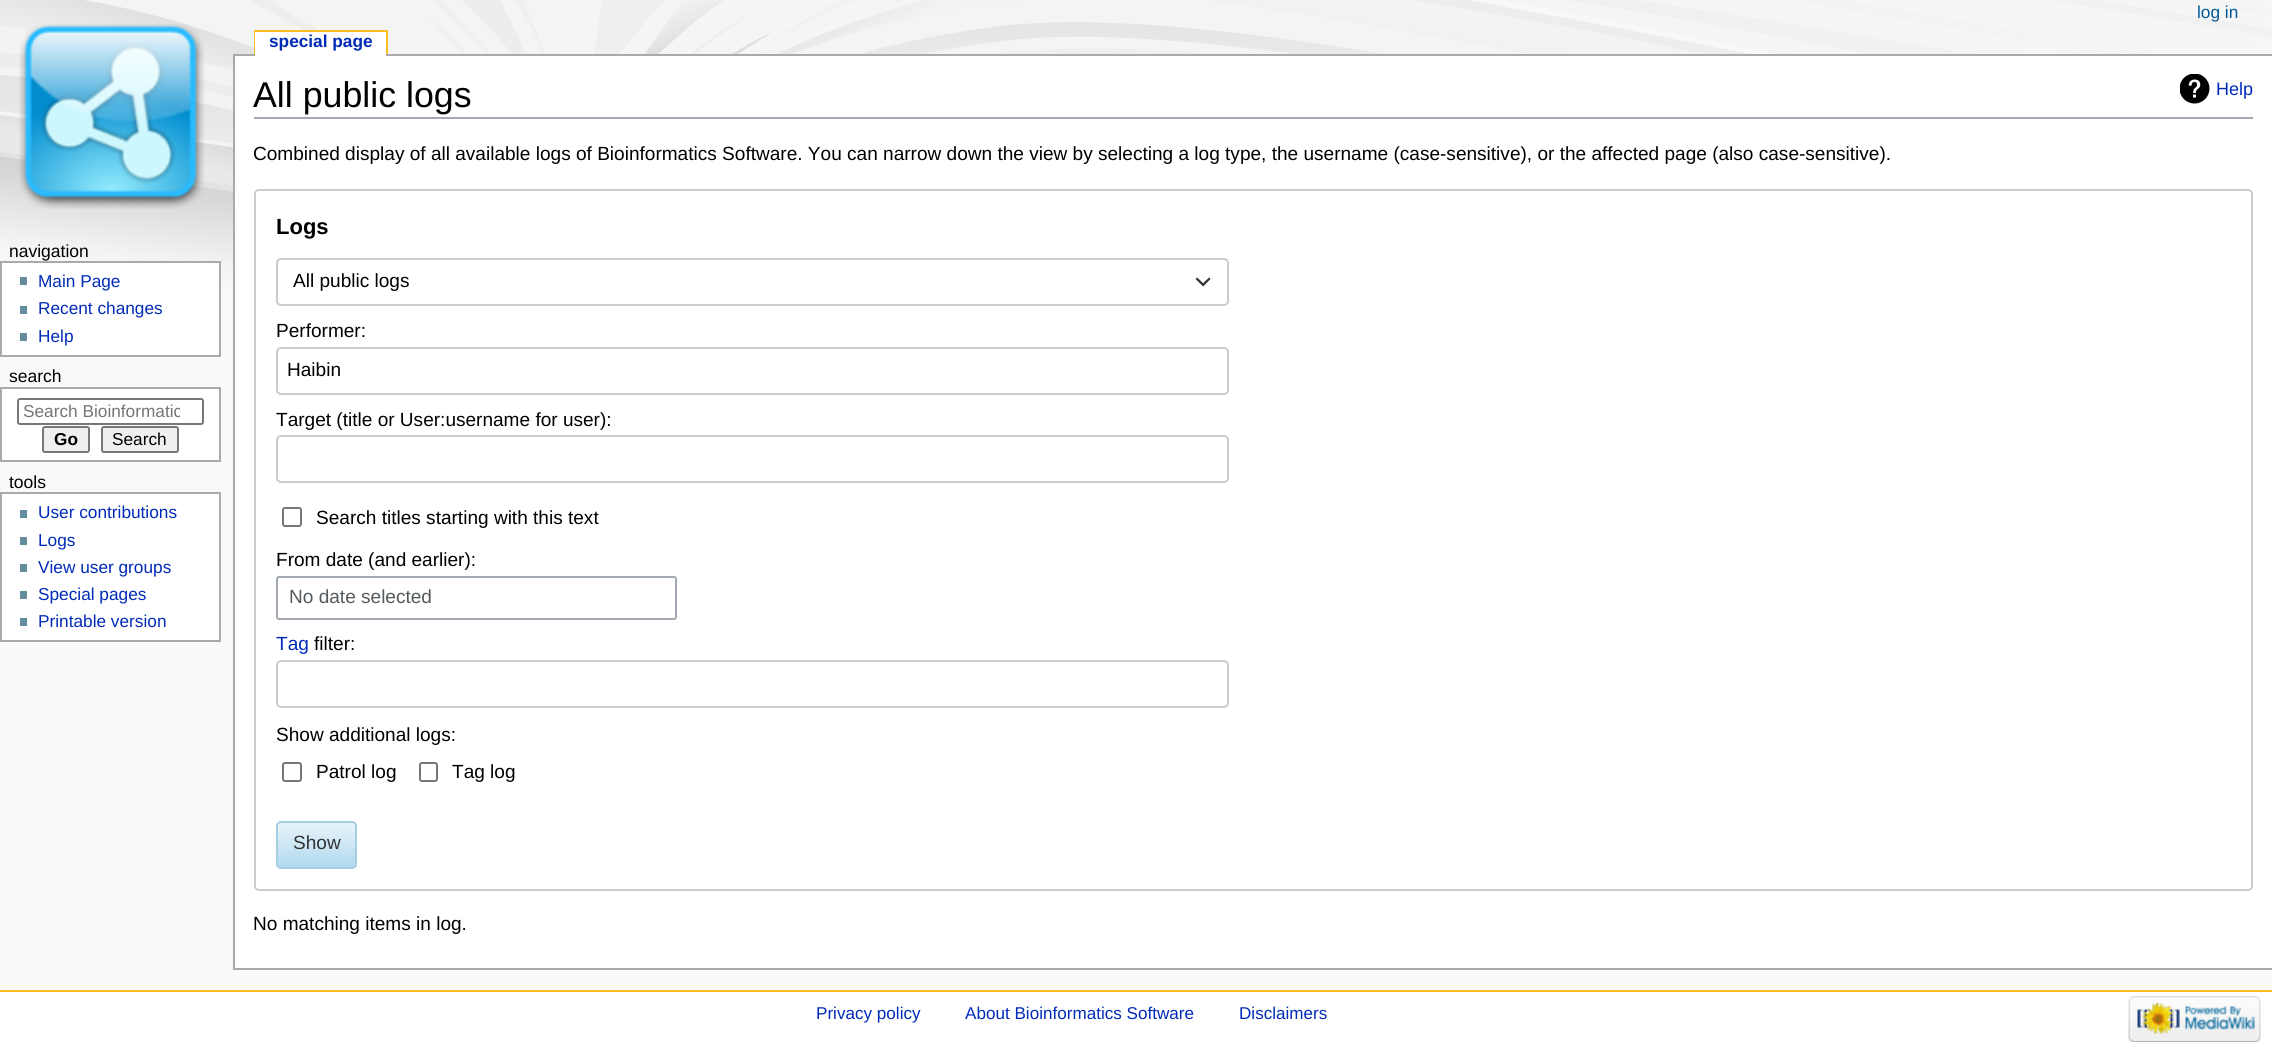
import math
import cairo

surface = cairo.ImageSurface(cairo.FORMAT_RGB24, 2272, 1042)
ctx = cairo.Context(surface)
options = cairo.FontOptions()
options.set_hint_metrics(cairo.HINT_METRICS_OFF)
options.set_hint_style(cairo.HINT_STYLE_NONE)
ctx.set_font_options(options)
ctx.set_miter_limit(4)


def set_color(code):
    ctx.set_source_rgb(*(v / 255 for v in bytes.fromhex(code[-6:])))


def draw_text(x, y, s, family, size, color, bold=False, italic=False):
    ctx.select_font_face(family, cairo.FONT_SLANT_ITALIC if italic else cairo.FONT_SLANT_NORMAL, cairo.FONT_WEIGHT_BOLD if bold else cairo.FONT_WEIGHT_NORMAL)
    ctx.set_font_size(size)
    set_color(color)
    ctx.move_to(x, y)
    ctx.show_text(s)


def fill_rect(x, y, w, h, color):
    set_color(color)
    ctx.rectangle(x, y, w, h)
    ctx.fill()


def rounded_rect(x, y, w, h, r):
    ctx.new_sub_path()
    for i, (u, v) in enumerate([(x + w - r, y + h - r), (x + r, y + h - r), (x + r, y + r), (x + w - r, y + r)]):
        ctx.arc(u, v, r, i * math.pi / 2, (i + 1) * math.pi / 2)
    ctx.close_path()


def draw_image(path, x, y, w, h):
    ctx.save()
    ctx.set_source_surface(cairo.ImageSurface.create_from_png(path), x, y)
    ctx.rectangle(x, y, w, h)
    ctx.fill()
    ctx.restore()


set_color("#f9f9f9")
ctx.paint()
draw_image("assets/img1.png", 0, 0, 2272, 315)
draw_text(2197, 18, "log in", "Liberation Sans", 17.25, "#005896")
draw_image("assets/img2.png", 19, 24, 186, 185)
fill_rect(254, 30, 133, 2, "#fabd23")
fill_rect(254, 30, 2, 24, "#fabd23")
fill_rect(233, 54, 2039, 2, "#aaaaaa")
fill_rect(255, 32, 131, 24, "#ffffff")
draw_text(269, 47, "special page", "Liberation Sans", 17.25, "#002bb8", bold=True)
fill_rect(386, 30, 2, 24, "#fabd23")
draw_text(9, 257, "navigation", "Liberation Sans", 17.5, "#000000")
set_color("#ffffff")
ctx.rectangle(1, 262, 219, 94)
ctx.fill_preserve()
set_color("#aaaaaa")
ctx.stroke()
fill_rect(20, 277, 7, 8, "#638c9c")
draw_text(38, 287, "Main Page", "Liberation Sans", 17.25, "#002bb8")
fill_rect(20, 306, 7, 8, "#638c9c")
draw_text(38, 314, "Recent changes", "Liberation Sans", 17.25, "#002bb8")
fill_rect(20, 333, 7, 8, "#638c9c")
draw_text(38, 342, "Help", "Liberation Sans", 17.25, "#002bb8")
draw_text(9, 382, "search", "Liberation Sans", 17.5, "#000000")
set_color("#ffffff")
ctx.rectangle(1, 388, 219, 73)
ctx.fill_preserve()
set_color("#aaaaaa")
ctx.stroke()
rounded_rect(18, 399, 185, 25, 2)
set_color("#767676")
ctx.stroke()
ctx.save()
ctx.rectangle(23, 402, 157, 18)
ctx.clip()
draw_text(23, 417, "Search Bioinformatic", "Liberation Sans", 17.25, "#757575")
ctx.restore()
set_color("#efefef")
rounded_rect(43, 427, 46, 25, 2)
ctx.fill_preserve()
set_color("#767676")
ctx.stroke()
draw_text(54, 445, "Go", "Liberation Sans", 17.25, "#000000", bold=True)
set_color("#efefef")
rounded_rect(102, 427, 76, 25, 2)
ctx.fill_preserve()
set_color("#767676")
ctx.stroke()
draw_text(112, 445, "Search", "Liberation Sans", 17.25, "#000000")
draw_text(9, 488, "tools", "Liberation Sans", 17.5, "#000000")
set_color("#ffffff")
ctx.rectangle(1, 493, 219, 148)
ctx.fill_preserve()
set_color("#aaaaaa")
ctx.stroke()
fill_rect(20, 510, 7, 8, "#638c9c")
draw_text(38, 518, "User contributions", "Liberation Sans", 17.25, "#002bb8")
fill_rect(20, 537, 7, 8, "#638c9c")
draw_text(38, 546, "Logs", "Liberation Sans", 17.25, "#002bb8")
fill_rect(20, 564, 7, 8, "#638c9c")
draw_text(38, 573, "View user groups", "Liberation Sans", 17.25, "#002bb8")
fill_rect(20, 591, 7, 8, "#638c9c")
draw_text(38, 600, "Special pages", "Liberation Sans", 17.25, "#002bb8")
fill_rect(20, 618, 7, 8, "#638c9c")
draw_text(38, 627, "Printable version", "Liberation Sans", 17.25, "#002bb8")
fill_rect(235, 56, 2037, 912, "#ffffff")
fill_rect(233, 968, 2039, 2, "#aaaaaa")
fill_rect(233, 54, 2, 915, "#aaaaaa")
fill_rect(254, 117, 1999, 2, "#a2a9b1")
draw_text(253, 107, "All public logs", "Liberation Sans", 35.75, "#000000")
draw_image("assets/img3.png", 2180, 74, 30, 30)
draw_text(2216, 95, "Help", "Liberation Sans", 18, "#002bb8")
draw_text(253, 160, "Combined display of all available logs of Bioinformatics Software. You can narrow down the view by selecting a log type, the username (case-sensitive), or the affected page (also case-sensitive).", "Liberation Sans", 19.05, "#000000")
rounded_rect(255, 190, 1997, 700, 4)
set_color("#cccccc")
ctx.stroke()
draw_text(276, 234, "Logs", "Liberation Sans", 22, "#000000", bold=True)
rounded_rect(277, 259, 951, 46, 4)
set_color("#cccccc")
ctx.stroke()
draw_text(293, 287, "All public logs", "Liberation Sans", 19.05, "#000000")
draw_image("assets/img4.png", 1195, 277, 16, 10)
draw_text(276, 337, "Performer:", "Liberation Sans", 19.05, "#000000")
rounded_rect(277, 348, 951, 46, 4)
set_color("#cccccc")
ctx.stroke()
draw_text(287, 376, "Haibin", "Liberation Sans", 19.05, "#000000")
draw_text(276, 426, "Target (title or User:username for user):", "Liberation Sans", 19.05, "#000000")
rounded_rect(277, 436, 951, 46, 4)
set_color("#cccccc")
ctx.stroke()
rounded_rect(283, 508, 18, 18, 2)
set_color("#767676")
ctx.stroke()
draw_text(316, 524, "Search titles starting with this text", "Liberation Sans", 19.05, "#000000")
draw_text(276, 566, "From date (and earlier):", "Liberation Sans", 19.05, "#000000")
rounded_rect(277, 577, 399, 42, 2)
set_color("#a2a9b1")
ctx.stroke()
draw_text(289, 603, "No date selected", "Liberation Sans", 19.05, "#54595d")
draw_text(276, 650, "Tag", "Liberation Sans", 19.05, "#002bb8")
draw_text(314, 650, "filter:", "Liberation Sans", 19.05, "#000000")
rounded_rect(277, 661, 951, 46, 4)
set_color("#cccccc")
ctx.stroke()
draw_text(276, 741, "Show additional logs:", "Liberation Sans", 19.05, "#000000")
rounded_rect(283, 763, 18, 18, 2)
set_color("#767676")
ctx.stroke()
draw_text(316, 778, "Patrol log", "Liberation Sans", 19.05, "#000000")
rounded_rect(420, 763, 17, 18, 2)
set_color("#767676")
ctx.stroke()
draw_text(452, 778, "Tag log", "Liberation Sans", 19.05, "#000000")
ctx.save()
rounded_rect(276, 821, 81, 48, 5)
ctx.clip()
gradient = cairo.LinearGradient(317, 822, 317, 867)
gradient.add_color_stop_rgba(0, 0.918, 0.957, 0.98, 1)
gradient.add_color_stop_rgba(1, 0.69, 0.851, 0.933, 1)
ctx.set_source(gradient)
ctx.rectangle(276, 822, 81, 45)
ctx.fill()
ctx.restore()
rounded_rect(277, 822, 79, 46, 4)
set_color("#a6cee1")
ctx.stroke()
draw_text(293, 849, "Show", "Liberation Sans", 19.05, "#333333")
draw_text(253, 930, "No matching items in log.", "Liberation Sans", 19.05, "#000000")
fill_rect(0, 992, 2272, 50, "#ffffff")
fill_rect(0, 990, 2272, 2, "#fabd23")
draw_text(816, 1019, "Privacy policy", "Liberation Sans", 17.1, "#002bb8")
draw_text(965, 1019, "About Bioinformatics Software", "Liberation Sans", 17.1, "#002bb8")
draw_text(1239, 1019, "Disclaimers", "Liberation Sans", 17.1, "#002bb8")
draw_image("assets/img5.png", 2128, 996, 133, 46)
surface.write_to_png("output.png")
